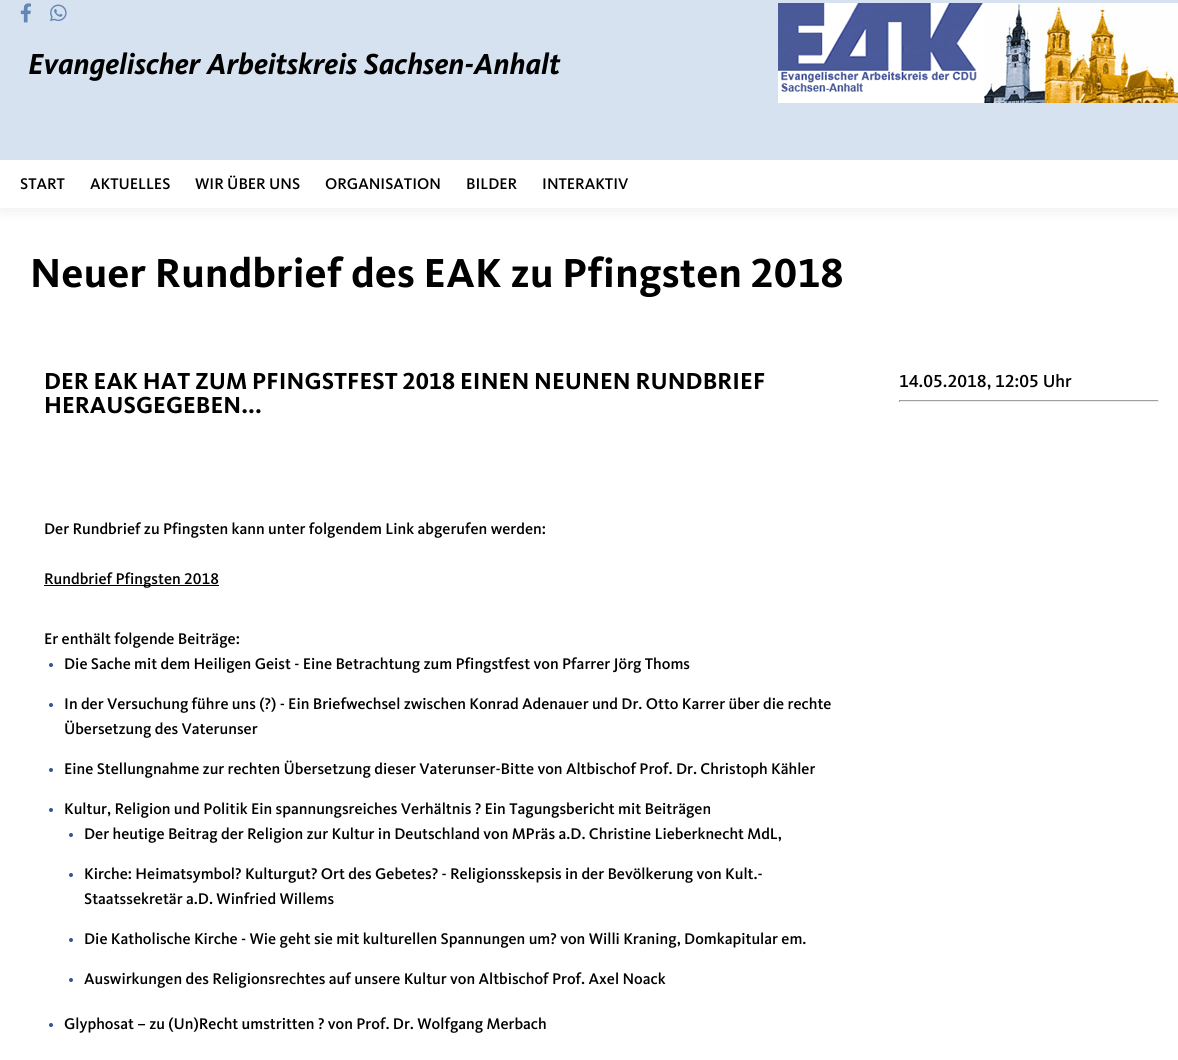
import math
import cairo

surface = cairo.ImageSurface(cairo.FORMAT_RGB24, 1178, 1060)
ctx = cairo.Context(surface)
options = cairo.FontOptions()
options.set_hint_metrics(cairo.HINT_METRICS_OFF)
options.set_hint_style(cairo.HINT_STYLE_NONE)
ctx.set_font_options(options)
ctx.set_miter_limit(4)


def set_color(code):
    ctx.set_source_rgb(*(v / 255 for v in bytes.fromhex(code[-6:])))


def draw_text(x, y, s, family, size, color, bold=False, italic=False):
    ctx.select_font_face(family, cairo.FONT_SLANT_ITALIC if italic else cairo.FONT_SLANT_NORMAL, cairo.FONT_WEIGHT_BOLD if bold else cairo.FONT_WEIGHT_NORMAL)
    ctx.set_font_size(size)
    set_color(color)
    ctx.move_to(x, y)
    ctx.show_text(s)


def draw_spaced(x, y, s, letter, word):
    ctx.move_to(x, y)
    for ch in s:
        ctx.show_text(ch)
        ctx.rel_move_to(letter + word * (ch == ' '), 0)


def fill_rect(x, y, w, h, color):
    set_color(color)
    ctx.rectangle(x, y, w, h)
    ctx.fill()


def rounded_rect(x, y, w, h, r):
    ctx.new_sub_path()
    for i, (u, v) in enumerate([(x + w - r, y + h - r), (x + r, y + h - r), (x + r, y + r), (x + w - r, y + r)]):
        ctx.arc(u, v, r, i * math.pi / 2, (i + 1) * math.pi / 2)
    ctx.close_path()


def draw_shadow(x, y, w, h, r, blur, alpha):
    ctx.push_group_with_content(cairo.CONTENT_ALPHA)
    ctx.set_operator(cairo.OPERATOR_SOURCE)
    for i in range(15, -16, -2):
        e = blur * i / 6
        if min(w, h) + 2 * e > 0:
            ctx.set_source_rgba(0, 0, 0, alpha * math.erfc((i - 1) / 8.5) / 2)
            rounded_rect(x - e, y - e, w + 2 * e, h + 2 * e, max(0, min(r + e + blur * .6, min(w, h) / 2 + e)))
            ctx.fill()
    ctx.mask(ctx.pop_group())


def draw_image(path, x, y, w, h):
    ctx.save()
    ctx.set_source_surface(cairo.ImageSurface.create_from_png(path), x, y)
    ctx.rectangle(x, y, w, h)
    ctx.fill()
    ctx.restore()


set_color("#ffffff")
ctx.paint()
set_color("#000000")
draw_shadow(0, -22, 1178, 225, 0, 10.5, 0.15)
fill_rect(0, 0, 1178, 160, "#d6e2f0")
draw_image("assets/img1.png", 20, 3, 11, 20)
draw_image("assets/img2.png", 50, 4, 17, 18)
draw_text(28, 74, "Evangelischer Arbeitskreis Sachsen-Anhalt", "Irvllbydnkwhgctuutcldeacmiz", 30, "#000000", bold=True, italic=True)
draw_image("assets/img3.png", 778, 3, 400, 100)
fill_rect(0, 160, 1178, 48, "#ffffff")
draw_text(20, 189, "START", "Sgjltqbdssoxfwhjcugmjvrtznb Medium", 16, "#000000")
draw_text(90, 189, "AKTUELLES", "Sgjltqbdssoxfwhjcugmjvrtznb Medium", 16, "#000000")
draw_text(195, 189, "WIR ÜBER UNS", "Sgjltqbdssoxfwhjcugmjvrtznb Medium", 16, "#000000")
draw_text(325, 189, "ORGANISATION", "Sgjltqbdssoxfwhjcugmjvrtznb Medium", 16, "#000000")
draw_text(466, 189, "BILDER", "Sgjltqbdssoxfwhjcugmjvrtznb Medium", 16, "#000000")
draw_text(542, 189, "INTERAKTIV", "Sgjltqbdssoxfwhjcugmjvrtznb Medium", 16, "#000000")
ctx.select_font_face("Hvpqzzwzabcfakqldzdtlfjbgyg", cairo.FONT_SLANT_NORMAL, cairo.FONT_WEIGHT_BOLD)
ctx.set_font_size(42)
draw_spaced(30, 287, "Neuer Rundbrief des EAK zu Pfingsten 2018", 0.35, 0)
ctx.set_font_size(24)
draw_spaced(44, 389, "DER EAK HAT ZUM PFINGSTFEST 2018 EINEN NEUNEN RUNDBRIEF", 0.1, 0)
draw_spaced(44, 413, "HERAUSGEGEBEN...", 0.1, 0)
draw_text(44, 534, "Der Rundbrief zu Pfingsten kann unter folgendem Link abgerufen werden:", "Sgjltqbdssoxfwhjcugmjvrtznb Medium", 16, "#000000")
fill_rect(44, 585, 175, 1, "#000000")
draw_text(44, 584, "Rundbrief Pfingsten 2018", "Sgjltqbdssoxfwhjcugmjvrtznb Medium", 16, "#000000")
draw_text(44, 644, "Er enthält folgende Beiträge:", "Sgjltqbdssoxfwhjcugmjvrtznb Medium", 16, "#000000")
set_color("#2f5597")
ctx.new_path()
ctx.arc(51, 665, 2, 0, 2 * math.pi)
ctx.fill()
draw_text(64, 669, "Die Sache mit dem Heiligen Geist - Eine Betrachtung zum Pfingstfest von Pfarrer Jörg Thoms", "Sgjltqbdssoxfwhjcugmjvrtznb Medium", 16, "#000000")
set_color("#2f5597")
ctx.new_path()
ctx.arc(51, 705, 2, 0, 2 * math.pi)
ctx.fill()
draw_text(64, 709, "In der Versuchung führe uns (?) - Ein Briefwechsel zwischen Konrad Adenauer und Dr. Otto Karrer über die rechte", "Sgjltqbdssoxfwhjcugmjvrtznb Medium", 16, "#000000")
draw_text(64, 734, "Übersetzung des Vaterunser", "Sgjltqbdssoxfwhjcugmjvrtznb Medium", 16, "#000000")
set_color("#2f5597")
ctx.new_path()
ctx.arc(51, 770, 2, 0, 2 * math.pi)
ctx.fill()
draw_text(64, 774, "Eine Stellungnahme zur rechten Übersetzung dieser Vaterunser-Bitte von Altbischof Prof. Dr. Christoph Kähler", "Sgjltqbdssoxfwhjcugmjvrtznb Medium", 16, "#000000")
set_color("#2f5597")
ctx.new_path()
ctx.arc(51, 810, 2, 0, 2 * math.pi)
ctx.fill()
draw_text(64, 814, "Kultur, Religion und Politik Ein spannungsreiches Verhältnis ? Ein Tagungsbericht mit Beiträgen", "Sgjltqbdssoxfwhjcugmjvrtznb Medium", 16, "#000000")
set_color("#2f5597")
ctx.new_path()
ctx.arc(71, 835, 2, 0, 2 * math.pi)
ctx.fill()
draw_text(84, 839, "Der heutige Beitrag der Religion zur Kultur in Deutschland von MPräs a.D. Christine Lieberknecht MdL,", "Sgjltqbdssoxfwhjcugmjvrtznb Medium", 16, "#000000")
set_color("#2f5597")
ctx.new_path()
ctx.arc(71, 875, 2, 0, 2 * math.pi)
ctx.fill()
draw_text(84, 879, "Kirche: Heimatsymbol? Kulturgut? Ort des Gebetes? - Religionsskepsis in der Bevölkerung von Kult.-", "Sgjltqbdssoxfwhjcugmjvrtznb Medium", 16, "#000000")
draw_text(84, 904, "Staatssekretär a.D. Winfried Willems", "Sgjltqbdssoxfwhjcugmjvrtznb Medium", 16, "#000000")
set_color("#2f5597")
ctx.new_path()
ctx.arc(71, 940, 2, 0, 2 * math.pi)
ctx.fill()
draw_text(84, 944, "Die Katholische Kirche - Wie geht sie mit kulturellen Spannungen um? von Willi Kraning, Domkapitular em.", "Sgjltqbdssoxfwhjcugmjvrtznb Medium", 16, "#000000")
set_color("#2f5597")
ctx.new_path()
ctx.arc(71, 980, 2, 0, 2 * math.pi)
ctx.fill()
draw_text(84, 984, "Auswirkungen des Religionsrechtes auf unsere Kultur von Altbischof Prof. Axel Noack", "Sgjltqbdssoxfwhjcugmjvrtznb Medium", 16, "#000000")
set_color("#2f5597")
ctx.new_path()
ctx.arc(51, 1025, 2, 0, 2 * math.pi)
ctx.fill()
draw_text(64, 1029, "Glyphosat – zu (Un)Recht umstritten ? von Prof. Dr. Wolfgang Merbach", "Sgjltqbdssoxfwhjcugmjvrtznb Medium", 16, "#000000")
draw_text(899, 387, "14.05.2018, 12:05 Uhr", "Sgjltqbdssoxfwhjcugmjvrtznb Medium", 18, "#000000")
fill_rect(899, 400, 260, 1, "#9f9f9f")
fill_rect(1158, 400, 1, 2, "#eeeeee")
fill_rect(899, 401, 260, 1, "#eeeeee")
fill_rect(899, 400, 1, 2, "#9f9f9f")
surface.write_to_png("output.png")
